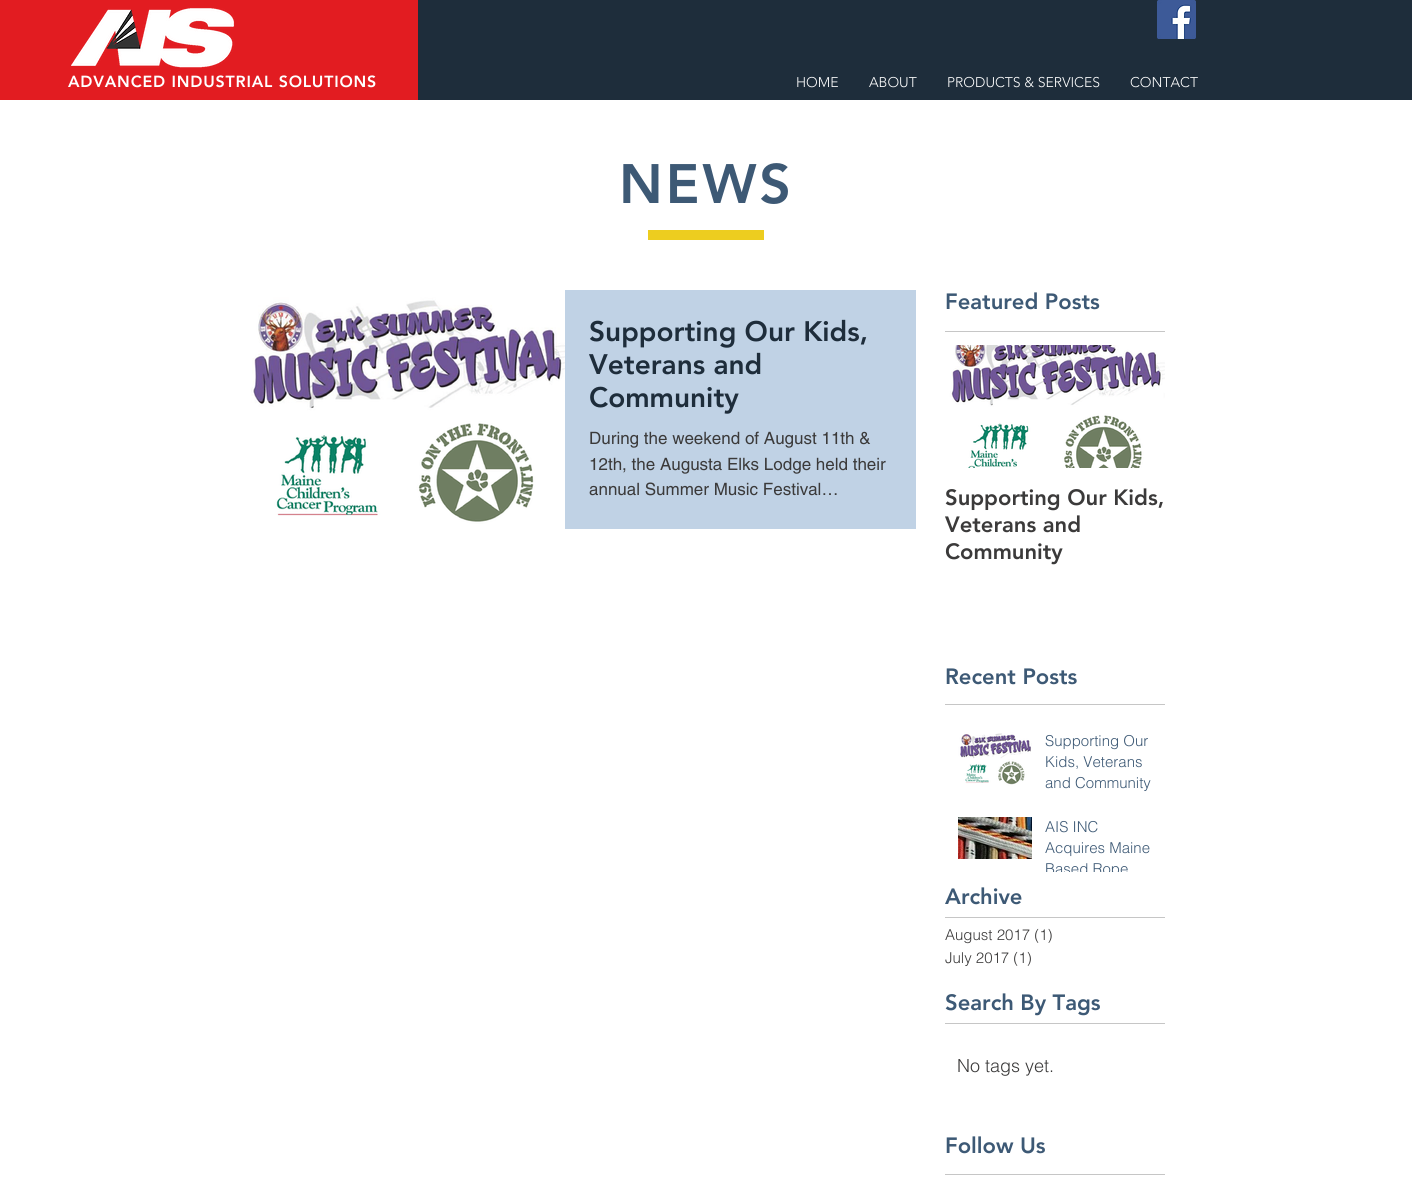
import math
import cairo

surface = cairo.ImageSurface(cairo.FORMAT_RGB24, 1412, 1179)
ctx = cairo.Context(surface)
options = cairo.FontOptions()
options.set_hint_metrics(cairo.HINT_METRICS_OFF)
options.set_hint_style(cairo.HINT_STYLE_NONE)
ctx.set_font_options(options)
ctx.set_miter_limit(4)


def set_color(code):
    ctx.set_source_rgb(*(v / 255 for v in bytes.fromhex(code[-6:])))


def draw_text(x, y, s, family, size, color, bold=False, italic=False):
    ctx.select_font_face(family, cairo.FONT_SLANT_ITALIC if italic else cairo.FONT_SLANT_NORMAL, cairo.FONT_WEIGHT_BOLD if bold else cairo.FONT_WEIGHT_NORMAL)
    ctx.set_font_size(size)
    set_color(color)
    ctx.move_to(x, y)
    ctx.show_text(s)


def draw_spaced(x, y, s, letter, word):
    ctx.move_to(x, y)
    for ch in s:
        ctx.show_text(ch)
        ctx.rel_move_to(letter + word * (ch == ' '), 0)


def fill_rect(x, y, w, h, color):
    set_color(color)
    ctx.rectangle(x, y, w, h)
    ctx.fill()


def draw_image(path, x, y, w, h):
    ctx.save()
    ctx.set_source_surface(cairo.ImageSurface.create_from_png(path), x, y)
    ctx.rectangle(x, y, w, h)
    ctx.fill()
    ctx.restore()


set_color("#ffffff")
ctx.paint()
fill_rect(0, 0, 418, 100, "#e21c21")
draw_image("assets/img1.png", 71, 8, 164, 60)
ctx.select_font_face("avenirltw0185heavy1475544 Black")
ctx.set_font_size(16)
set_color("#ffffff")
draw_spaced(68, 87, "ADVANCED INDUSTRIAL SOLUTIONS", 0.8, 0)
fill_rect(418, 0, 994, 100, "#1e2d3b")
draw_image("assets/img2.png", 1157, 0, 39, 39)
draw_text(796, 87, "HOME", "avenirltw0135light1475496 Light", 14, "#ffffff")
draw_text(869, 87, "ABOUT", "avenirltw0135light1475496 Light", 14, "#ffffff")
draw_text(947, 87, "PRODUCTS & SERVICES", "avenirltw0135light1475496 Light", 14, "#ffffff")
draw_text(1130, 87, "CONTACT", "avenirltw0135light1475496 Light", 14, "#ffffff")
ctx.select_font_face("avenirltw0185heavy1475544 Black")
ctx.set_font_size(55)
set_color("#3d5975")
draw_spaced(619, 203, "NEWS", 3, 0)
fill_rect(648, 230, 116, 10, "#edcd1f")
draw_text(945, 309, "Featured Posts", "avenirltw0185heavy1475544 Black", 22, "#3d5975")
draw_image("assets/img3.png", 246, 290, 319, 239)
fill_rect(565, 290, 351, 239, "#c0d2e5")
draw_text(589, 341, "Supporting Our Kids,", "avenirltw0185heavy1475544 Black", 28, "#1e2d3b")
draw_text(589, 374, "Veterans and", "avenirltw0185heavy1475544 Black", 28, "#1e2d3b")
draw_text(589, 407, "Community", "avenirltw0185heavy1475544 Black", 28, "#1e2d3b")
draw_text(589, 444, "During the weekend of August 11th &", "helvetica", 17, "#3b3a3a")
draw_text(589, 470, "12th, the Augusta Elks Lodge held their", "helvetica", 17, "#3b3a3a")
draw_text(589, 495, "annual Summer Music Festival…", "helvetica", 17, "#3b3a3a")
fill_rect(945, 331, 220, 1, "#c6c6c6")
draw_image("assets/img4.png", 945, 345, 220, 123)
draw_text(945, 505, "Supporting Our Kids,", "avenirltw0185heavy1475544 Black", 22, "#3b3a3a")
draw_text(945, 532, "Veterans and", "avenirltw0185heavy1475544 Black", 22, "#3b3a3a")
draw_text(945, 559, "Community", "avenirltw0185heavy1475544 Black", 22, "#3b3a3a")
draw_text(945, 684, "Recent Posts", "avenirltw0185heavy1475544 Black", 22, "#3d5975")
fill_rect(945, 704, 220, 1, "#c6c6c6")
draw_image("assets/img5.png", 958, 731, 74, 55)
draw_text(1045, 746, "Supporting Our", "helvetica Light", 15, "#3d5975")
draw_text(1045, 767, "Kids, Veterans", "helvetica Light", 15, "#3d5975")
draw_text(1045, 788, "and Community", "helvetica Light", 15, "#3d5975")
draw_image("assets/img6.png", 958, 817, 74, 42)
draw_text(1045, 832, "AIS INC", "helvetica Light", 15, "#3d5975")
draw_text(1045, 853, "Acquires Maine", "helvetica Light", 15, "#3d5975")
ctx.save()
ctx.rectangle(1045, 816, 108, 56)
ctx.clip()
draw_text(1045, 874, "Based Rope", "helvetica Light", 15, "#3d5975")
ctx.restore()
draw_text(945, 904, "Archive", "avenirltw0185heavy1475544 Black", 22, "#3d5975")
fill_rect(945, 917, 220, 1, "#c6c6c6")
draw_text(945, 940, "August 2017 (1)", "helvetica Light", 15, "#3b3a3a")
draw_text(945, 963, "July 2017 (1)", "helvetica Light", 15, "#3b3a3a")
draw_text(945, 1010, "Search By Tags", "avenirltw0185heavy1475544 Black", 22, "#3d5975")
fill_rect(945, 1023, 220, 1, "#c6c6c6")
draw_text(957, 1072, "No tags yet.", "helvetica Light", 18, "#3b3a3a")
draw_text(945, 1153, "Follow Us", "avenirltw0185heavy1475544 Black", 22, "#3d5975")
fill_rect(945, 1174, 220, 1, "#c6c6c6")
surface.write_to_png("output.png")
